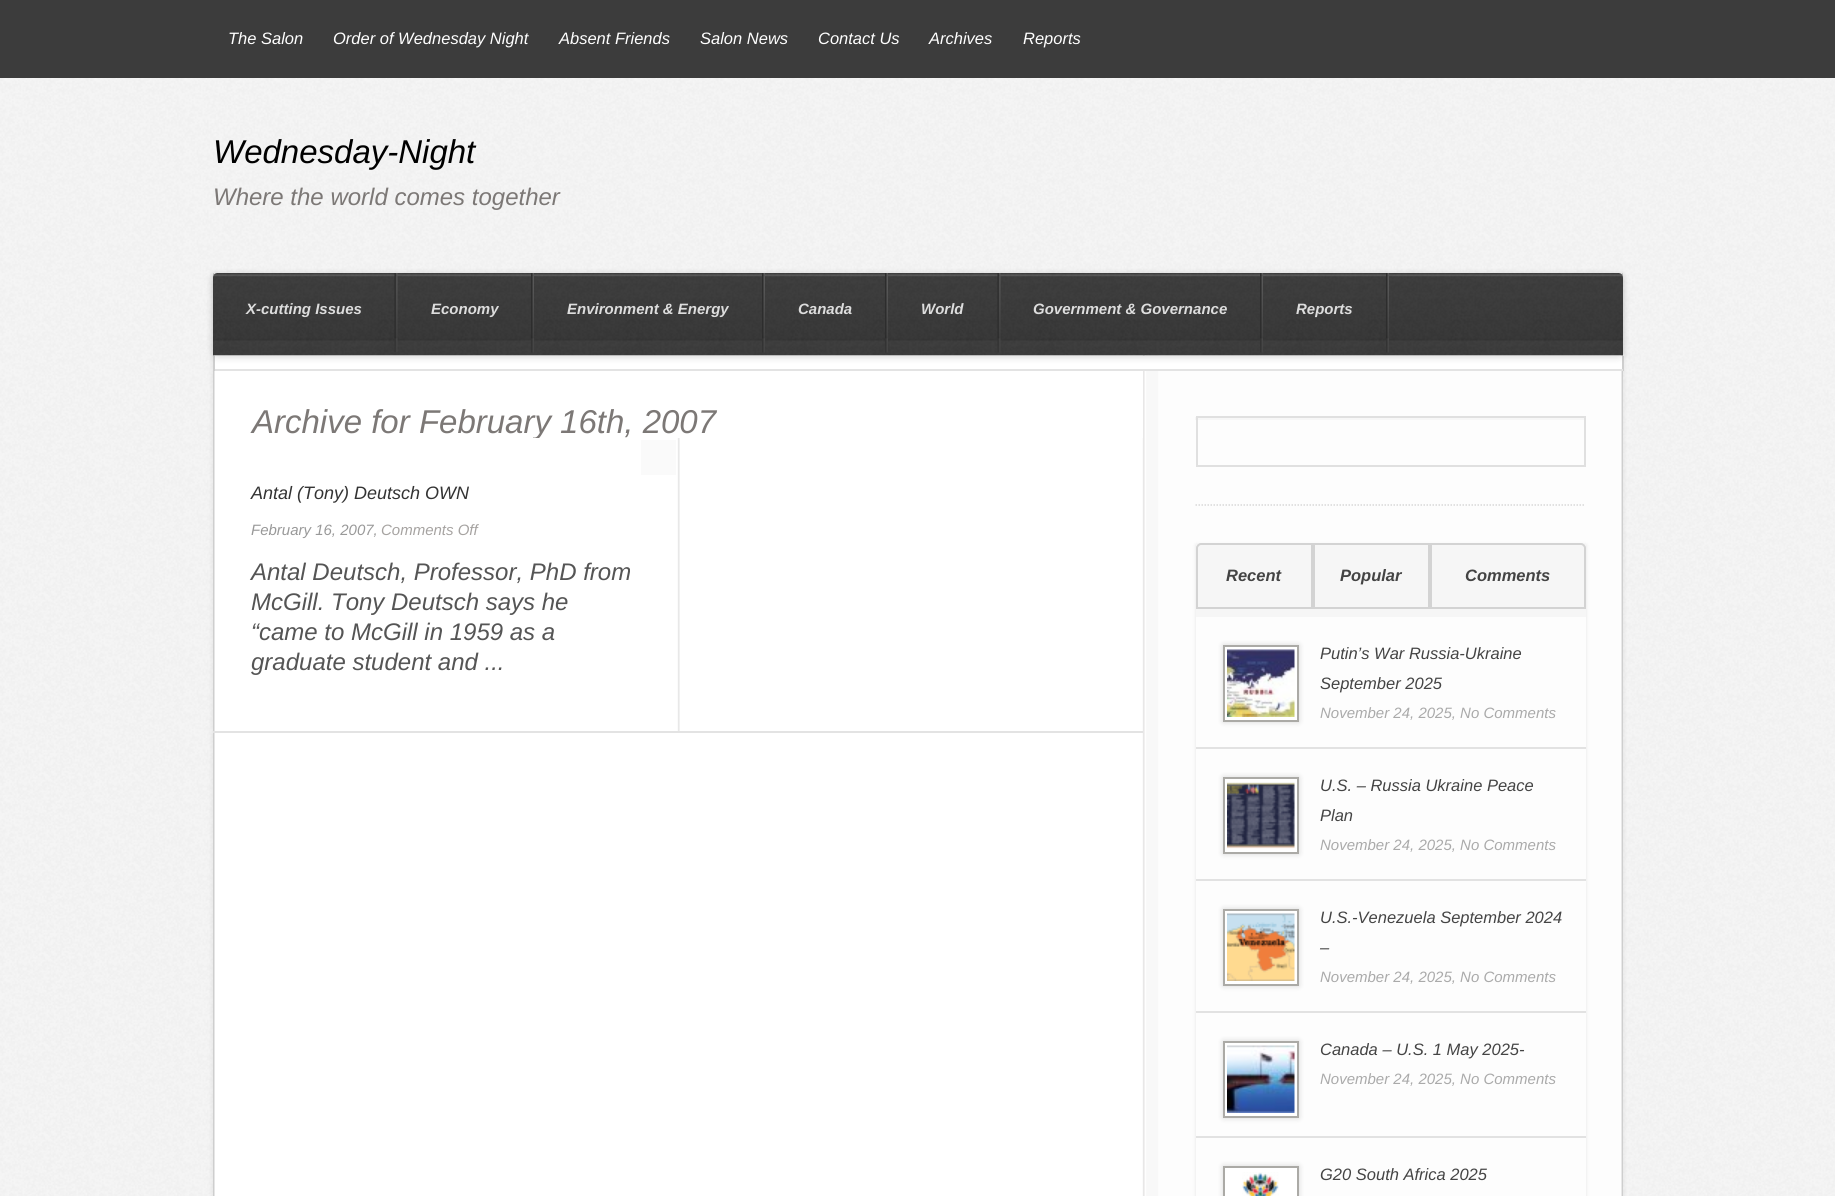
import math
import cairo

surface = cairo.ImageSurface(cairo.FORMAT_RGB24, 1835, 1196)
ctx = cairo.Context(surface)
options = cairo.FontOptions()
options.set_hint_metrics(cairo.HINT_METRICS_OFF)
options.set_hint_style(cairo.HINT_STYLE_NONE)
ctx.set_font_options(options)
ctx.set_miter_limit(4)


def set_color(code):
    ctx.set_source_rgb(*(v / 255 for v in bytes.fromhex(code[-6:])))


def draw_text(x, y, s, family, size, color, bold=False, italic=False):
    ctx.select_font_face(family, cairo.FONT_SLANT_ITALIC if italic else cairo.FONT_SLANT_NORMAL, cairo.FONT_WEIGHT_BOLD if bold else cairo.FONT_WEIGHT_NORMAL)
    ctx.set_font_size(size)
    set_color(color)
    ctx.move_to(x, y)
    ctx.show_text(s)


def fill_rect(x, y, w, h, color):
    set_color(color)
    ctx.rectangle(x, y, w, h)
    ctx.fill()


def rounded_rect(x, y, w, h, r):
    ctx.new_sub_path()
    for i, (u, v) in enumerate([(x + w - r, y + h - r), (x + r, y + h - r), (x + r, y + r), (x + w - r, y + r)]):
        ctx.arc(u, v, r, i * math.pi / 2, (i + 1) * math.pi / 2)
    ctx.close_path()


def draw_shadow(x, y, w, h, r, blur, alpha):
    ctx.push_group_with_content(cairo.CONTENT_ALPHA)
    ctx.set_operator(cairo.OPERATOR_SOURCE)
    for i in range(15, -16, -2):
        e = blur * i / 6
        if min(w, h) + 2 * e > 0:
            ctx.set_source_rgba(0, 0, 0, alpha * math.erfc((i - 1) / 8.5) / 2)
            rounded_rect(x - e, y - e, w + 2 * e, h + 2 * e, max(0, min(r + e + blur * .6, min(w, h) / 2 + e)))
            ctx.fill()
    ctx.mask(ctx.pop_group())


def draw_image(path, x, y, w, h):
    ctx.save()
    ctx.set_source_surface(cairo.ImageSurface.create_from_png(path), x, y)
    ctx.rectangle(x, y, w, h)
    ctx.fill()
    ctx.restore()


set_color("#ffffff")
ctx.paint()
draw_image("assets/img1.png", 0, 78, 1835, 1118)
fill_rect(0, 0, 1835, 78, "#3c3c3c")
draw_text(228, 44, "The Salon", "Liberation Sans", 16.5, "#ffffff", italic=True)
draw_text(333, 44, "Order of Wednesday Night", "Liberation Sans", 16.5, "#ffffff", italic=True)
draw_text(559, 44, "Absent Friends", "Liberation Sans", 16.5, "#ffffff", italic=True)
draw_text(700, 44, "Salon News", "Liberation Sans", 16.5, "#ffffff", italic=True)
draw_text(818, 44, "Contact Us", "Liberation Sans", 16.5, "#ffffff", italic=True)
draw_text(929, 44, "Archives", "Liberation Sans", 16.5, "#ffffff", italic=True)
draw_text(1023, 44, "Reports", "Liberation Sans", 16.5, "#ffffff", italic=True)
draw_text(213, 163, "Wednesday-Night", "Liberation Sans", 33, "#000000", italic=True)
draw_text(213, 205, "Where the world comes together", "Liberation Sans", 24, "#7c7876", italic=True)
set_color("#000000")
draw_shadow(213, 275, 1410, 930, 0, 3, 0.08)
draw_image("assets/img2.png", 213, 273, 1410, 923)
fill_rect(1142, 356, 480, 13, "#ffffff")
fill_rect(1623, 356, 1, 15, "#cecece")
fill_rect(213, 369, 1410, 2, "#e3e3e3")
fill_rect(213, 356, 2, 15, "#cecece")
set_color("#000000")
draw_shadow(213, 275, 1410, 82, 5, 4, 0.15)
draw_image("assets/img3.png", 213, 273, 1410, 83)
draw_image("assets/img4.png", 394, 273, 4, 79)
draw_text(246, 314, "X-cutting Issues", "Liberation Sans", 15, "#dddddd", bold=True, italic=True)
draw_image("assets/img5.png", 531, 273, 3, 80)
draw_text(431, 314, "Economy", "Liberation Sans", 15, "#dddddd", bold=True, italic=True)
draw_image("assets/img6.png", 762, 273, 3, 80)
draw_text(567, 314, "Environment & Energy", "Liberation Sans", 15, "#dddddd", bold=True, italic=True)
draw_image("assets/img7.png", 885, 273, 3, 80)
draw_text(798, 314, "Canada", "Liberation Sans", 15, "#dddddd", bold=True, italic=True)
draw_image("assets/img8.png", 997, 273, 4, 80)
draw_text(921, 314, "World", "Liberation Sans", 15, "#dddddd", bold=True, italic=True)
draw_image("assets/img9.png", 1260, 273, 3, 80)
draw_text(1033, 314, "Government & Governance", "Liberation Sans", 15, "#dddddd", bold=True, italic=True)
draw_image("assets/img6.png", 1386, 273, 3, 80)
draw_text(1296, 314, "Reports", "Liberation Sans", 15, "#dddddd", bold=True, italic=True)
fill_rect(1142, 371, 1, 67, "#ffffff")
draw_text(252, 433, "Archive for February 16th, 2007", "Liberation Sans", 33, "#7c7876", italic=True)
draw_image("assets/img10.png", 532, 438, 148, 293)
fill_rect(213, 731, 930, 2, "#e3e3e3")
fill_rect(641, 440, 35, 35, "#fafafa")
draw_text(251, 499, "Antal (Tony) Deutsch OWN", "Liberation Sans", 18, "#333333", italic=True)
draw_text(251, 535, "February 16, 2007,", "Liberation Sans", 15, "#999999", italic=True)
draw_text(381, 535, "Comments Off", "Liberation Sans", 15, "#a6a3a1", italic=True)
draw_text(251, 580, "Antal Deutsch, Professor, PhD from", "Liberation Sans", 24, "#555555", italic=True)
draw_text(251, 610, "McGill. Tony Deutsch says he", "Liberation Sans", 24, "#555555", italic=True)
draw_text(251, 640, "“came to McGill in 1959 as a", "Liberation Sans", 24, "#555555", italic=True)
draw_text(251, 670, "graduate student and ...", "Liberation Sans", 24, "#555555", italic=True)
ctx.new_path()
ctx.move_to(1195.5, 505)
ctx.line_to(1585.5, 505)
set_color("#d7d7d7")
ctx.set_line_width(1.5)
ctx.set_dash([1.5, 1.5])
ctx.stroke()
fill_rect(1195, 417, 391, 3, "#f7f7f7")
ctx.rectangle(1197, 417, 388, 49)
set_color("#e0e0e0")
ctx.set_line_width(2)
ctx.set_dash([])
ctx.stroke()
ctx.save()
ctx.set_fill_rule(cairo.FILL_RULE_EVEN_ODD)
ctx.new_path()
ctx.move_to(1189, 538)
ctx.line_to(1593, 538)
ctx.line_to(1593, 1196)
ctx.line_to(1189, 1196)
ctx.close_path()
ctx.move_to(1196, 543)
ctx.line_to(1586, 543)
ctx.line_to(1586, 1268)
ctx.line_to(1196, 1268)
ctx.close_path()
ctx.clip()
set_color("#000000")
draw_shadow(1196, 545, 390, 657, 0, 2, 0.1)
ctx.restore()
fill_rect(1196, 543, 390, 74, "#f6f6f6")
ctx.new_path()
ctx.move_to(1201, 544)
ctx.line_to(1312, 544)
ctx.line_to(1312, 608)
ctx.line_to(1197, 608)
ctx.line_to(1197, 548)
ctx.curve_to(1197, 546, 1199, 544, 1201, 544)
ctx.close_path()
set_color("#d3d3d3")
ctx.stroke()
draw_text(1226, 581, "Recent", "Liberation Sans", 16.5, "#444444", bold=True, italic=True)
ctx.rectangle(1314, 544, 115, 64)
set_color("#d3d3d3")
ctx.stroke()
draw_text(1340, 581, "Popular", "Liberation Sans", 16.5, "#444444", bold=True, italic=True)
ctx.new_path()
ctx.move_to(1431, 544)
ctx.line_to(1581, 544)
ctx.curve_to(1583, 544, 1585, 546, 1585, 548)
ctx.line_to(1585, 608)
ctx.line_to(1431, 608)
ctx.close_path()
set_color("#d3d3d3")
ctx.stroke()
draw_text(1465, 581, "Comments", "Liberation Sans", 16.5, "#444444", bold=True, italic=True)
fill_rect(1196, 747, 390, 2, "#e2e2e2")
set_color("#000000")
draw_shadow(1223, 645, 76, 77, 0, 3, 0.15)
set_color("#ffffff")
ctx.rectangle(1224, 646, 74, 75)
ctx.fill_preserve()
set_color("#abaaa6")
ctx.stroke()
draw_image("assets/img11.png", 1227, 649, 68, 68)
draw_text(1320, 659, "Putin’s War Russia-Ukraine", "Liberation Sans", 16.5, "#444444", italic=True)
draw_text(1320, 689, "September 2025", "Liberation Sans", 16.5, "#444444", italic=True)
draw_text(1320, 718, "November 24, 2025, No Comments", "Liberation Sans", 15, "#aaaaaa", italic=True)
fill_rect(1196, 879, 390, 2, "#e2e2e2")
set_color("#000000")
draw_shadow(1223, 777, 76, 77, 0, 3, 0.15)
set_color("#ffffff")
ctx.rectangle(1224, 778, 74, 75)
ctx.fill_preserve()
set_color("#abaaa6")
ctx.stroke()
draw_image("assets/img12.png", 1227, 782, 68, 67)
draw_text(1320, 791, "U.S. – Russia Ukraine Peace", "Liberation Sans", 16.5, "#444444", italic=True)
draw_text(1320, 821, "Plan", "Liberation Sans", 16.5, "#444444", italic=True)
draw_text(1320, 850, "November 24, 2025, No Comments", "Liberation Sans", 15, "#aaaaaa", italic=True)
fill_rect(1196, 1011, 390, 2, "#e2e2e2")
set_color("#000000")
draw_shadow(1223, 909, 76, 77, 0, 3, 0.15)
set_color("#ffffff")
ctx.rectangle(1224, 910, 74, 75)
ctx.fill_preserve()
set_color("#abaaa6")
ctx.stroke()
draw_image("assets/img13.png", 1227, 913, 68, 68)
draw_text(1320, 923, "U.S.-Venezuela September 2024", "Liberation Sans", 16.5, "#444444", italic=True)
draw_text(1320, 953, "–", "Liberation Sans", 16.5, "#444444", italic=True)
draw_text(1320, 982, "November 24, 2025, No Comments", "Liberation Sans", 15, "#aaaaaa", italic=True)
fill_rect(1196, 1136, 390, 2, "#e2e2e2")
set_color("#000000")
draw_shadow(1223, 1041, 76, 77, 0, 3, 0.15)
set_color("#ffffff")
ctx.rectangle(1224, 1042, 74, 75)
ctx.fill_preserve()
set_color("#abaaa6")
ctx.stroke()
draw_image("assets/img14.png", 1227, 1045, 68, 68)
draw_text(1320, 1055, "Canada – U.S. 1 May 2025-", "Liberation Sans", 16.5, "#444444", italic=True)
draw_text(1320, 1084, "November 24, 2025, No Comments", "Liberation Sans", 15, "#aaaaaa", italic=True)
set_color("#000000")
draw_shadow(1223, 1166, 76, 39, 0, 3, 0.15)
set_color("#ffffff")
ctx.rectangle(1224, 1167, 74, 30)
ctx.fill_preserve()
set_color("#abaaa6")
ctx.stroke()
draw_image("assets/img15.png", 1242, 1172, 37, 24)
draw_text(1320, 1180, "G20 South Africa 2025", "Liberation Sans", 16.5, "#444444", italic=True)
surface.write_to_png("output.png")
